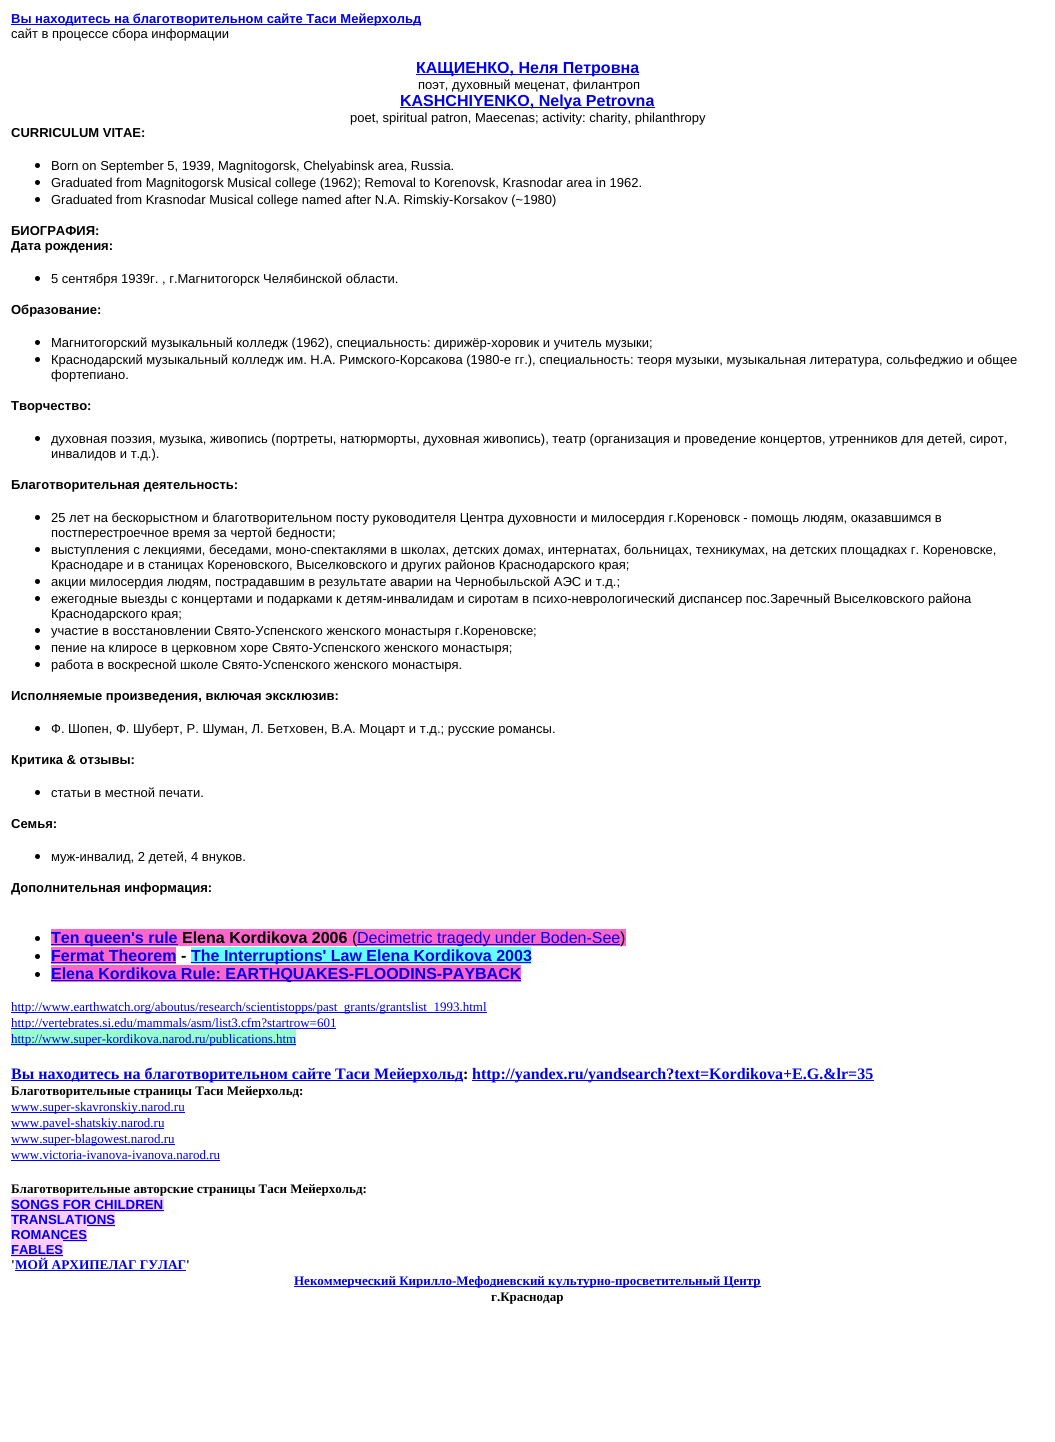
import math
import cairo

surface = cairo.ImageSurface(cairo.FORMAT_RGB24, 1055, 1442)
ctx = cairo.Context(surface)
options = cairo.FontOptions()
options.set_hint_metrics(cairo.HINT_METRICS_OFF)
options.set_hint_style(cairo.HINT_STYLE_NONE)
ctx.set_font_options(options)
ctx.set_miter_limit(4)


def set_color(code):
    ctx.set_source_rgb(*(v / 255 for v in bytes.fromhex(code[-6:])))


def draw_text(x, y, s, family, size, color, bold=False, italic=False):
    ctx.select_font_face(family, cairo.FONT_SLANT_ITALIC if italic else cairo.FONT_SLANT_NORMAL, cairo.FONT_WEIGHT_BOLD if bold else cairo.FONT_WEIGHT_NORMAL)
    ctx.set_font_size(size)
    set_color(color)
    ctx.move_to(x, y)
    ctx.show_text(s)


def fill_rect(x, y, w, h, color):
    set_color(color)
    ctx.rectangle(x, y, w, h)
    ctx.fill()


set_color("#ffffff")
ctx.paint()
fill_rect(11, 24, 410, 1, "#0000ee")
draw_text(11, 23, "Вы находитесь на благотворительном сайте Таси Мейерхольд", "Liberation Sans", 13, "#0000ee", bold=True)
draw_text(11, 38, "сайт в процессе сбора информации", "Liberation Sans", 13, "#000000")
fill_rect(416, 74, 223, 1, "#0000ee")
draw_text(416, 73, "КАЩИЕНКО, Неля Петровна", "Liberation Sans", 16, "#0000ee", bold=True)
draw_text(418, 89, "поэт, духовный меценат, филантроп", "Liberation Sans", 13, "#000000")
fill_rect(400, 107, 255, 1, "#0000ee")
draw_text(400, 106, "KASHCHIYENKO, Nelya Petrovna", "Liberation Sans", 16, "#0000ee", bold=True)
draw_text(350, 122, "poet, spiritual patron, Maecenas; activity: charity, philanthropy", "Liberation Sans", 13, "#000000")
draw_text(11, 137, "СURRICULUM VITAE:", "Liberation Sans", 13, "#000000", bold=True)
ctx.new_path()
ctx.arc(37.5, 165.5, 2.5, 0, 2 * math.pi)
ctx.fill()
draw_text(51, 170, "Born on September 5, 1939, Magnitogorsk, Chelyabinsk area, Russia.", "Liberation Sans", 13, "#000000")
ctx.new_path()
ctx.arc(37.5, 182.5, 2.5, 0, 2 * math.pi)
ctx.fill()
draw_text(51, 187, "Graduated from Magnitogorsk Musical college (1962); Removal to Korenovsk, Krasnodar area in 1962.", "Liberation Sans", 13, "#000000")
ctx.new_path()
ctx.arc(37.5, 199.5, 2.5, 0, 2 * math.pi)
ctx.fill()
draw_text(51, 204, "Graduated from Krasnodar Musical college named after N.A. Rimskiy-Korsakov (~1980)", "Liberation Sans", 13, "#000000")
draw_text(11, 235, "БИОГРАФИЯ:", "Liberation Sans", 13, "#000000", bold=True)
draw_text(11, 250, "Дата рождения:", "Liberation Sans", 13, "#000000", bold=True)
ctx.new_path()
ctx.arc(37.5, 278.5, 2.5, 0, 2 * math.pi)
ctx.fill()
draw_text(51, 283, "5 сентября 1939г. , г.Магнитогорск Челябинской области.", "Liberation Sans", 13, "#000000")
draw_text(11, 314, "Образование:", "Liberation Sans", 13, "#000000", bold=True)
ctx.new_path()
ctx.arc(37.5, 342.5, 2.5, 0, 2 * math.pi)
ctx.fill()
draw_text(51, 347, "Магнитогорский музыкальный колледж (1962), специальность: дирижёр-хоровик и учитель музыки;", "Liberation Sans", 13, "#000000")
ctx.new_path()
ctx.arc(37.5, 359.5, 2.5, 0, 2 * math.pi)
ctx.fill()
draw_text(51, 364, "Краснодарский музыкальный колледж им. Н.А. Римского-Корсакова (1980-е гг.), специальность: теоря музыки, музыкальная литература, сольфеджио и общее", "Liberation Sans", 13, "#000000")
draw_text(51, 379, "фортепиано.", "Liberation Sans", 13, "#000000")
draw_text(11, 410, "Творчество:", "Liberation Sans", 13, "#000000", bold=True)
ctx.new_path()
ctx.arc(37.5, 438.5, 2.5, 0, 2 * math.pi)
ctx.fill()
draw_text(51, 443, "духовная поэзия, музыка, живопись (портреты, натюрморты, духовная живопись), театр (организация и проведение концертов, утренников для детей, сирот,", "Liberation Sans", 13, "#000000")
draw_text(51, 458, "инвалидов и т.д.).", "Liberation Sans", 13, "#000000")
draw_text(11, 489, "Благотворительная деятельность:", "Liberation Sans", 13, "#000000", bold=True)
ctx.new_path()
ctx.arc(37.5, 517.5, 2.5, 0, 2 * math.pi)
ctx.fill()
draw_text(51, 522, "25 лет на бескорыстном и благотворительном посту руководителя Центра духовности и милосердия г.Кореновск - помощь людям, оказавшимся в", "Liberation Sans", 13, "#000000")
draw_text(51, 537, "постперестроечное время за чертой бедности;", "Liberation Sans", 13, "#000000")
ctx.new_path()
ctx.arc(37.5, 549.5, 2.5, 0, 2 * math.pi)
ctx.fill()
draw_text(51, 554, "выступления с лекциями, беседами, моно-спектаклями в школах, детских домах, интернатах, больницах, техникумах, на детских площадках г. Кореновске,", "Liberation Sans", 13, "#000000")
draw_text(51, 569, "Краснодаре и в станицах Кореновского, Выселковского и других районов Краснодарского края;", "Liberation Sans", 13, "#000000")
ctx.new_path()
ctx.arc(37.5, 581.5, 2.5, 0, 2 * math.pi)
ctx.fill()
draw_text(51, 586, "акции милосердия людям, пострадавшим в результате аварии на Чернобыльской АЭС и т.д.;", "Liberation Sans", 13, "#000000")
ctx.new_path()
ctx.arc(37.5, 598.5, 2.5, 0, 2 * math.pi)
ctx.fill()
draw_text(51, 603, "ежегодные выезды с концертами и подарками к детям-инвалидам и сиротам в психо-неврологический диспансер пос.Заречный Выселковского района", "Liberation Sans", 13, "#000000")
draw_text(51, 618, "Краснодарского края;", "Liberation Sans", 13, "#000000")
ctx.new_path()
ctx.arc(37.5, 630.5, 2.5, 0, 2 * math.pi)
ctx.fill()
draw_text(51, 635, "участие в восстановлении Свято-Успенского женского монастыря г.Кореновске;", "Liberation Sans", 13, "#000000")
ctx.new_path()
ctx.arc(37.5, 647.5, 2.5, 0, 2 * math.pi)
ctx.fill()
draw_text(51, 652, "пение на клиросе в церковном хоре Свято-Успенского женского монастыря;", "Liberation Sans", 13, "#000000")
ctx.new_path()
ctx.arc(37.5, 664.5, 2.5, 0, 2 * math.pi)
ctx.fill()
draw_text(51, 669, "работа в воскресной школе Свято-Успенского женского монастыря.", "Liberation Sans", 13, "#000000")
draw_text(11, 700, "Исполняемые произведения, включая эксклюзив:", "Liberation Sans", 13, "#000000", bold=True)
ctx.new_path()
ctx.arc(37.5, 728.5, 2.5, 0, 2 * math.pi)
ctx.fill()
draw_text(51, 733, "Ф. Шопен, Ф. Шуберт, Р. Шуман, Л. Бетховен, В.А. Моцарт и т.д.; русские романсы.", "Liberation Sans", 13, "#000000")
draw_text(11, 764, "Критика & отзывы:", "Liberation Sans", 13, "#000000", bold=True)
ctx.new_path()
ctx.arc(37.5, 792.5, 2.5, 0, 2 * math.pi)
ctx.fill()
draw_text(51, 797, "статьи в местной печати.", "Liberation Sans", 13, "#000000")
draw_text(11, 828, "Семья:", "Liberation Sans", 13, "#000000", bold=True)
ctx.new_path()
ctx.arc(37.5, 856.5, 2.5, 0, 2 * math.pi)
ctx.fill()
draw_text(51, 861, "муж-инвалид, 2 детей, 4 внуков.", "Liberation Sans", 13, "#000000")
draw_text(11, 892, "Дополнительная информация:", "Liberation Sans", 13, "#000000", bold=True)
ctx.new_path()
ctx.arc(37.5, 938.5, 2.5, 0, 2 * math.pi)
ctx.fill()
fill_rect(51, 929, 575, 17, "#ff66cc")
fill_rect(51, 944, 127, 1, "#0000ee")
draw_text(51, 943, "Ten queen's rule", "Liberation Sans", 16, "#0000ee", bold=True)
draw_text(182, 943, "Elena Kordikova 2006", "Liberation Sans", 16, "#000000", bold=True)
draw_text(352, 943, "(", "Liberation Sans", 16, "#000000")
fill_rect(357, 944, 263, 1, "#0000ee")
draw_text(357, 943, "Decimetric tragedy under Boden-See", "Liberation Sans", 16, "#0000ee")
draw_text(620, 943, ")", "Liberation Sans", 16, "#000000")
ctx.new_path()
ctx.arc(37.5, 956.5, 2.5, 0, 2 * math.pi)
ctx.fill()
fill_rect(51, 947, 125, 17, "#ff66cc")
draw_text(51, 961, "Fermat Theorem", "Liberation Sans", 16, "#0000ee", bold=True)
fill_rect(51, 962, 125, 1, "#0000ee")
draw_text(181, 961, "-", "Liberation Sans", 16, "#000000", bold=True)
fill_rect(191, 947, 340, 17, "#66ffff")
fill_rect(191, 962, 340, 1, "#0000ee")
draw_text(191, 961, "The Interruptions' Law Elena Kordikova 2003", "Liberation Sans", 16, "#0000ee", bold=True)
set_color("#000000")
ctx.new_path()
ctx.arc(37.5, 974.5, 2.5, 0, 2 * math.pi)
ctx.fill()
fill_rect(51, 965, 470, 17, "#ff66cc")
fill_rect(51, 980, 470, 1, "#0000ee")
draw_text(51, 979, "Elena Kordikova Rule: EARTHQUAKES-FLOODINS-PAYBACK", "Liberation Sans", 16, "#0000ee", bold=True)
fill_rect(11, 1012, 476, 1, "#0000ee")
draw_text(11, 1011, "http://www.earthwatch.org/aboutus/research/scientistopps/past_grants/grantslist_1993.html", "Liberation Serif", 13, "#0000ee")
fill_rect(11, 1028, 325, 1, "#0000ee")
draw_text(11, 1027, "http://vertebrates.si.edu/mammals/asm/list3.cfm?startrow=601", "Liberation Serif", 13, "#0000ee")
fill_rect(11, 1029, 285, 17, "#99ffcc")
fill_rect(11, 1044, 285, 1, "#0000ee")
draw_text(11, 1043, "http://www.super-kordikova.narod.ru/publications.htm", "Liberation Serif", 13, "#0000ee")
fill_rect(11, 1080, 452, 1, "#0000ee")
draw_text(11, 1079, "Вы находитесь на благотворительном сайте Таси Мейерхольд", "Liberation Serif", 16, "#0000ee", bold=True)
draw_text(463, 1079, ":", "Liberation Serif", 16, "#000000", bold=True)
fill_rect(472, 1080, 402, 1, "#0000ee")
draw_text(472, 1079, "http://yandex.ru/yandsearch?text=Kordikova+E.G.&lr=35", "Liberation Serif", 16, "#0000ee", bold=True)
draw_text(11, 1095, "Благотворительные страницы Таси Мейерхольд:", "Liberation Serif", 13, "#000000", bold=True)
fill_rect(11, 1112, 174, 1, "#0000ee")
draw_text(11, 1111, "www.super-skavronskiy.narod.ru", "Liberation Serif", 13, "#0000ee")
fill_rect(11, 1128, 153, 1, "#0000ee")
draw_text(11, 1127, "www.pavel-shatskiy.narod.ru", "Liberation Serif", 13, "#0000ee")
fill_rect(11, 1144, 164, 1, "#0000ee")
draw_text(11, 1143, "www.super-blagowest.narod.ru", "Liberation Serif", 13, "#0000ee")
draw_text(11, 1159, "www.victoria-ivanova-ivanova.narod.ru", "Liberation Serif", 13, "#0000ee")
fill_rect(11, 1160, 209, 1, "#0000ee")
draw_text(11, 1193, "Благотворительные авторские страницы Таси Мейерхольд:", "Liberation Serif", 13, "#000000", bold=True)
fill_rect(11, 1197, 153, 15, "#ffccff")
draw_text(11, 1209, "SONGS FOR CHILDREN", "Liberation Sans", 13.3, "#0000ff", bold=True)
fill_rect(11, 1210, 153, 1, "#0000ee")
fill_rect(11, 1212, 104, 15, "#ffccff")
draw_text(11, 1224, "TRANSLATIONS", "Liberation Sans", 13.3, "#0000ee", bold=True)
fill_rect(87, 1225, 28, 1, "#0000ee")
fill_rect(11, 1227, 76, 15, "#ffccff")
draw_text(11, 1239, "ROMANCES", "Liberation Sans", 13, "#0000ee", bold=True)
fill_rect(63, 1240, 24, 1, "#0000ee")
fill_rect(11, 1242, 52, 15, "#ffccff")
draw_text(11, 1254, "FABLES", "Liberation Sans", 13, "#0000ee", bold=True)
fill_rect(11, 1255, 52, 1, "#0000ee")
draw_text(11, 1269, "'", "Liberation Serif", 13.3, "#000000", bold=True)
draw_text(15, 1269, "МОЙ АРХИПЕЛАГ ГУЛАГ", "Liberation Serif", 13.3, "#0000ee", bold=True)
fill_rect(15, 1270, 171, 1, "#0000ee")
draw_text(186, 1269, "'", "Liberation Serif", 13.3, "#000000", bold=True)
fill_rect(294, 1286, 262, 1, "#0000ee")
draw_text(294, 1285, "Некоммерческий Кирилло-Мефодиевский к", "Liberation Serif", 13, "#0000ee", bold=True)
fill_rect(556, 1286, 205, 1, "#0000ee")
draw_text(556, 1285, "ультурно-просветительный Центр", "Liberation Serif", 13, "#0000ee", bold=True)
draw_text(491, 1301, "г.Краснодар", "Liberation Serif", 13, "#000000", bold=True)
surface.write_to_png("output.png")
